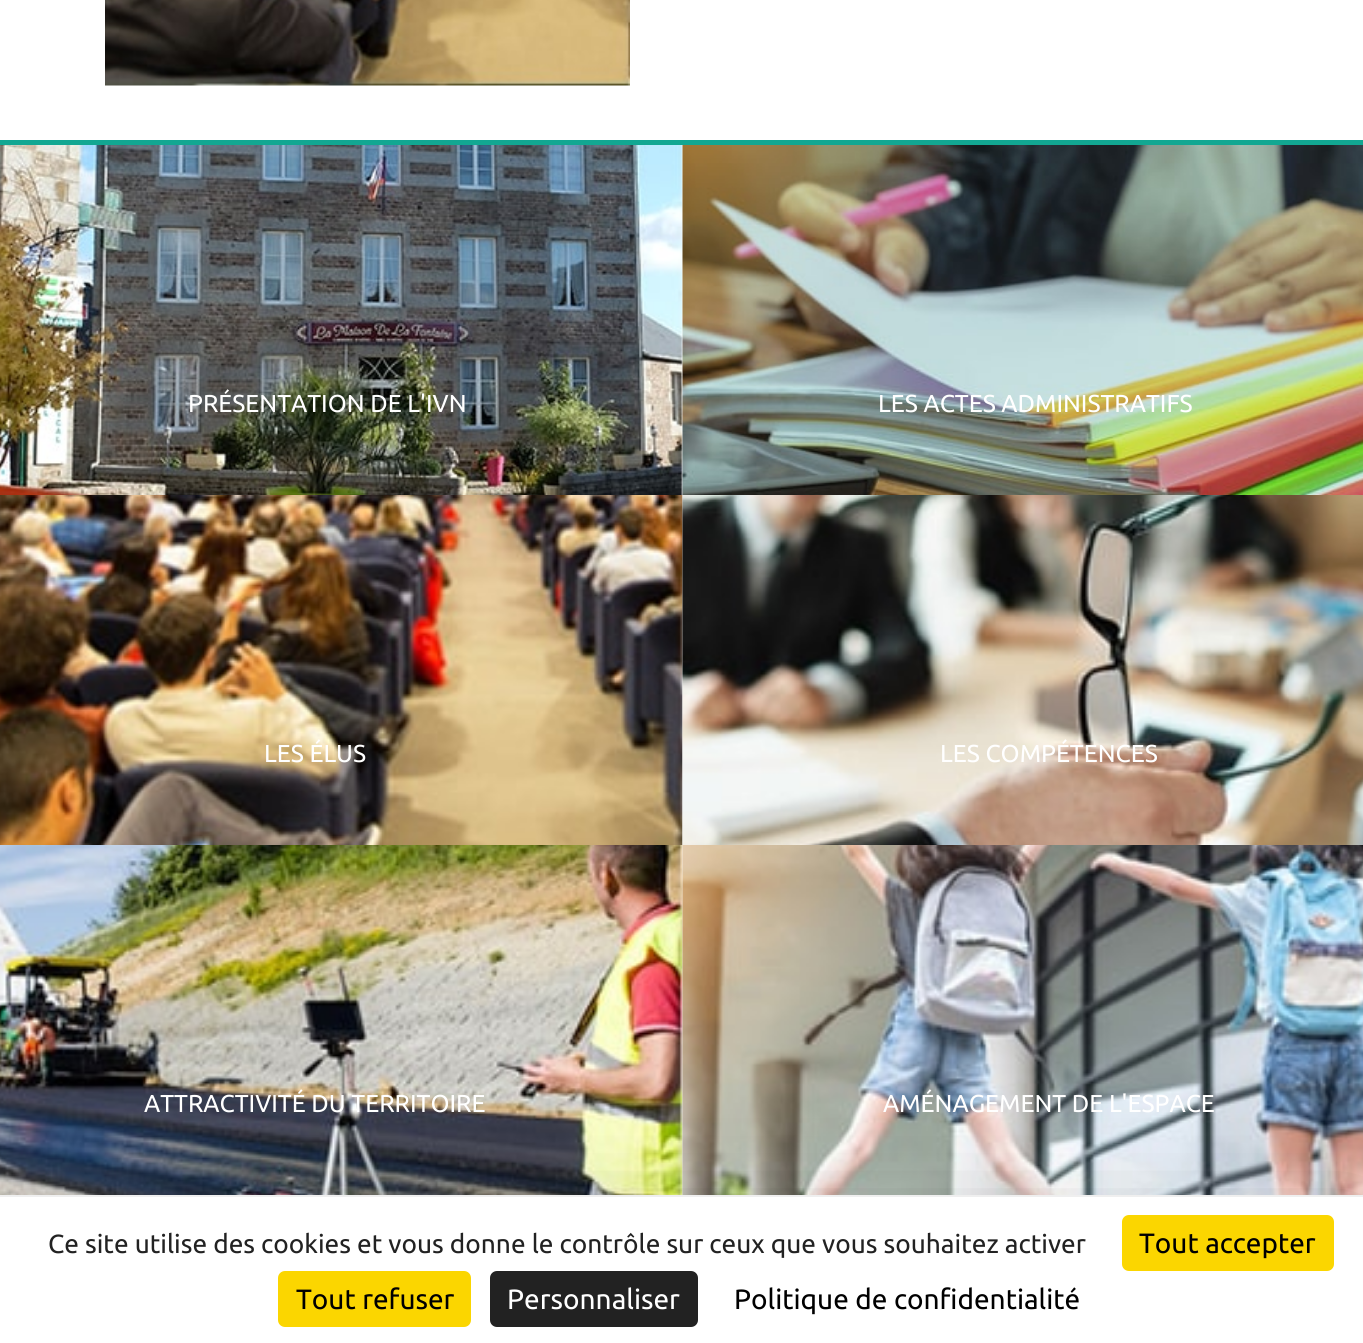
import math
import cairo

surface = cairo.ImageSurface(cairo.FORMAT_RGB24, 1363, 1343)
ctx = cairo.Context(surface)
options = cairo.FontOptions()
options.set_hint_metrics(cairo.HINT_METRICS_OFF)
options.set_hint_style(cairo.HINT_STYLE_NONE)
ctx.set_font_options(options)
ctx.set_miter_limit(4)


def set_color(code):
    ctx.set_source_rgb(*(v / 255 for v in bytes.fromhex(code[-6:])))


def draw_text(x, y, s, family, size, color, bold=False, italic=False):
    ctx.select_font_face(family, cairo.FONT_SLANT_ITALIC if italic else cairo.FONT_SLANT_NORMAL, cairo.FONT_WEIGHT_BOLD if bold else cairo.FONT_WEIGHT_NORMAL)
    ctx.set_font_size(size)
    set_color(color)
    ctx.move_to(x, y)
    ctx.show_text(s)


def fill_rect(x, y, w, h, color):
    set_color(color)
    ctx.rectangle(x, y, w, h)
    ctx.fill()


def rounded_rect(x, y, w, h, r):
    ctx.new_sub_path()
    for i, (u, v) in enumerate([(x + w - r, y + h - r), (x + r, y + h - r), (x + r, y + r), (x + w - r, y + r)]):
        ctx.arc(u, v, r, i * math.pi / 2, (i + 1) * math.pi / 2)
    ctx.close_path()


def draw_shadow(x, y, w, h, r, blur, alpha):
    ctx.push_group_with_content(cairo.CONTENT_ALPHA)
    ctx.set_operator(cairo.OPERATOR_SOURCE)
    for i in range(15, -16, -2):
        e = blur * i / 6
        if min(w, h) + 2 * e > 0:
            ctx.set_source_rgba(0, 0, 0, alpha * math.erfc((i - 1) / 8.5) / 2)
            rounded_rect(x - e, y - e, w + 2 * e, h + 2 * e, max(0, min(r + e + blur * .6, min(w, h) / 2 + e)))
            ctx.fill()
    ctx.mask(ctx.pop_group())


def draw_image(path, x, y, w, h):
    ctx.save()
    ctx.set_source_surface(cairo.ImageSurface.create_from_png(path), x, y)
    ctx.rectangle(x, y, w, h)
    ctx.fill()
    ctx.restore()


set_color("#ffffff")
ctx.paint()
draw_image("assets/img1.png", 105, 0, 525, 86)
fill_rect(0, 140, 1363, 5, "#12a792")
draw_image("assets/img2.png", 0, 145, 683, 350)
draw_text(188, 412, "PRÉSENTATION DE L'IVN", "Ubuntu", 24.5, "#ffffff")
draw_image("assets/img3.png", 682, 145, 681, 350)
draw_text(878, 412, "LES ACTES ADMINISTRATIFS", "Ubuntu", 24.5, "#ffffff")
draw_image("assets/img4.png", 0, 495, 683, 350)
draw_text(264, 762, "LES ÉLUS", "Ubuntu", 24.5, "#ffffff")
draw_image("assets/img5.png", 682, 495, 681, 350)
draw_text(940, 762, "LES COMPÉTENCES", "Ubuntu", 24.5, "#ffffff")
draw_image("assets/img6.png", 0, 845, 683, 350)
draw_text(144, 1112, "ATTRACTIVITÉ DU TERRITOIRE", "Ubuntu", 24.5, "#ffffff")
draw_image("assets/img7.png", 682, 845, 681, 350)
draw_text(883, 1112, "AMÉNAGEMENT DE L'ESPACE", "Ubuntu", 24.5, "#ffffff")
set_color("#000000")
draw_shadow(0, 1232, 1363, 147, 0, 52.5, 0.25)
fill_rect(0, 1197, 1363, 146, "#ffffff")
draw_text(48, 1253, "Ce site utilise des cookies et vous donne le contrôle sur ceux que vous souhaitez activer", "Ubuntu", 26.25, "#222222")
set_color("#fbd600")
rounded_rect(1122, 1215, 212, 56, 7)
ctx.fill()
draw_text(1139, 1253, "Tout accepter", "Ubuntu", 28, "#000000")
set_color("#fbd600")
rounded_rect(278, 1271, 193, 56, 7)
ctx.fill()
draw_text(296, 1309, "Tout refuser", "Ubuntu", 28, "#000000")
set_color("#222222")
rounded_rect(490, 1271, 208, 56, 7)
ctx.fill()
draw_text(507, 1309, "Personnaliser", "Ubuntu", 28, "#ffffff")
draw_text(734, 1309, "Politique de confidentialité", "Ubuntu", 28, "#000000")
surface.write_to_png("output.png")
